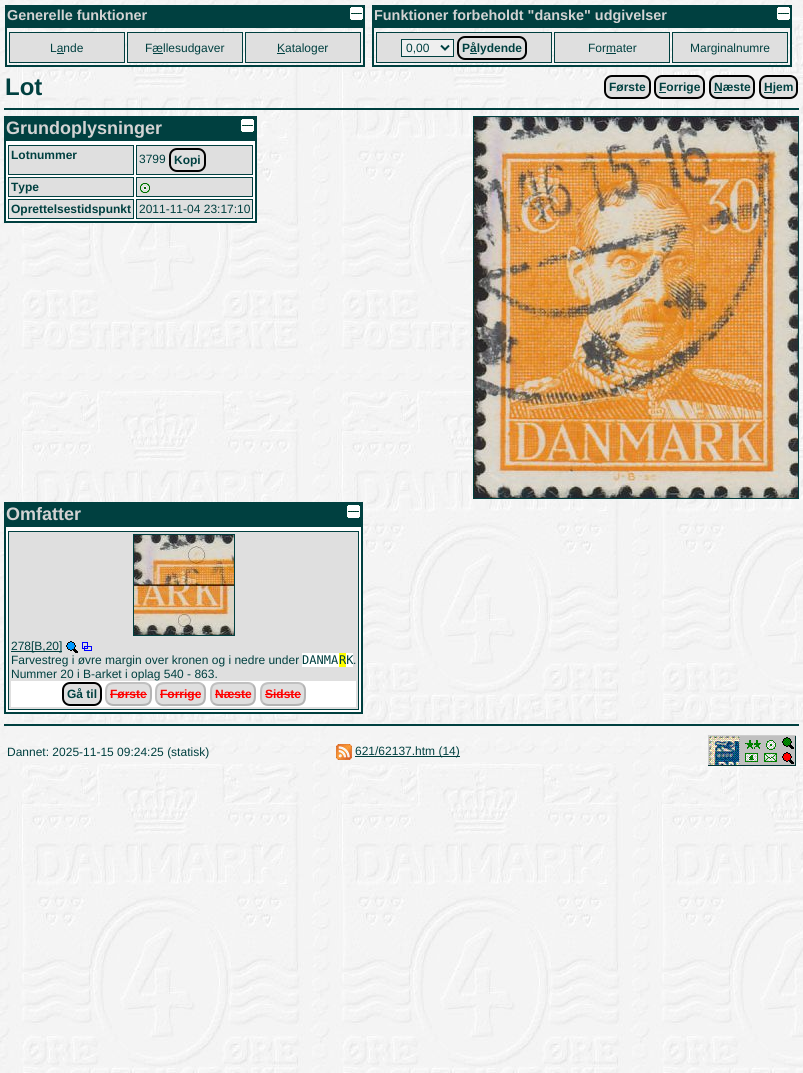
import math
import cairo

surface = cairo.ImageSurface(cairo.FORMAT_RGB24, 803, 1073)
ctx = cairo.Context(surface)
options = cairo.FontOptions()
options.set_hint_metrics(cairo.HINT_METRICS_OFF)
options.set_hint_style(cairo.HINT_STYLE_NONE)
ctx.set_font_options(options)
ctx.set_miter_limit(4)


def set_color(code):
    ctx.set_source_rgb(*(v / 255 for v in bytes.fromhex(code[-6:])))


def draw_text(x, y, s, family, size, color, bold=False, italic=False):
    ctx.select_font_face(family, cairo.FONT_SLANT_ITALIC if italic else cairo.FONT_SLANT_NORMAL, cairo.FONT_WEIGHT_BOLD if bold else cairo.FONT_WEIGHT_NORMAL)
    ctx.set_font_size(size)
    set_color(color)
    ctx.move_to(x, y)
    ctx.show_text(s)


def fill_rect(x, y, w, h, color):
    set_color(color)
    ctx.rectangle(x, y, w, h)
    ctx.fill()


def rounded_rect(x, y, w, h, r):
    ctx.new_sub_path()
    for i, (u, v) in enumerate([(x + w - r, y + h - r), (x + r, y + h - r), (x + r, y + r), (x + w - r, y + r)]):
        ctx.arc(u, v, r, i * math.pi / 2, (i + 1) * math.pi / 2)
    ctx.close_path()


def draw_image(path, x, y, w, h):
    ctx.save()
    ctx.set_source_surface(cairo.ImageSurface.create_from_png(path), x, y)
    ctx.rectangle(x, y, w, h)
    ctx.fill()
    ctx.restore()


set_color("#ffffff")
ctx.paint()
draw_image("assets/img1.png", 0, 0, 803, 1073)
ctx.rectangle(6, 6, 358, 60)
set_color("#004040")
ctx.stroke()
fill_rect(7, 7, 356, 21, "#004040")
draw_text(7, 20, "Generelle funktioner", "Liberation Sans", 14.4, "#d3d3d3", bold=True)
draw_image("assets/img2.png", 350, 7, 13, 13)
set_color("#dfdfdf")
ctx.rectangle(9.5, 32.5, 115, 30)
ctx.fill_preserve()
set_color("#004040")
ctx.set_line_width(1)
ctx.stroke()
draw_text(50, 52, "Lande", "Liberation Sans", 12, "#004040")
fill_rect(57, 53, 7, 1, "#004040")
set_color("#dfdfdf")
ctx.rectangle(127.5, 32.5, 115, 30)
ctx.fill_preserve()
set_color("#004040")
ctx.stroke()
draw_text(145, 52, "Fællesudgaver", "Liberation Sans", 12, "#004040")
fill_rect(153, 53, 10, 1, "#004040")
set_color("#dfdfdf")
ctx.rectangle(245.5, 32.5, 115, 30)
ctx.fill_preserve()
set_color("#004040")
ctx.stroke()
fill_rect(277, 53, 8, 1, "#004040")
draw_text(277, 52, "Kataloger", "Liberation Sans", 12, "#004040")
ctx.rectangle(373, 6, 418, 60)
ctx.set_line_width(2)
ctx.stroke()
fill_rect(374, 7, 416, 21, "#004040")
draw_text(374, 20, "Funktioner forbeholdt \"danske\" udgivelser", "Liberation Sans", 14.4, "#d3d3d3", bold=True)
draw_image("assets/img2.png", 777, 7, 13, 13)
set_color("#dfdfdf")
ctx.rectangle(376.5, 32.5, 175, 30)
ctx.fill_preserve()
set_color("#004040")
ctx.set_line_width(1)
ctx.stroke()
set_color("#efefef")
ctx.rectangle(401.5, 39.5, 52, 17)
ctx.fill_preserve()
set_color("#004040")
ctx.stroke()
ctx.new_path()
ctx.move_to(441, 45.5)
ctx.line_to(445, 49.5)
ctx.line_to(449, 45.5)
ctx.set_line_width(2)
ctx.stroke()
draw_text(406, 52, "0,00", "Liberation Sans", 12, "#004040")
rounded_rect(458, 37, 68, 22, 7)
set_color("#000000")
ctx.stroke()
draw_text(462, 52, "Pålydende", "Liberation Sans", 12, "#004040", bold=True)
fill_rect(470, 53, 7, 1, "#004040")
set_color("#dfdfdf")
ctx.rectangle(554.5, 32.5, 115, 30)
ctx.fill_preserve()
set_color("#004040")
ctx.set_line_width(1)
ctx.stroke()
draw_text(588, 52, "Formater", "Liberation Sans", 12, "#004040")
fill_rect(606, 53, 10, 1, "#004040")
set_color("#dfdfdf")
ctx.rectangle(672.5, 32.5, 115, 30)
ctx.fill_preserve()
set_color("#004040")
ctx.stroke()
draw_text(690, 52, "Marginalnumre", "Liberation Sans", 12, "#004040")
draw_text(5, 95, "Lot", "Liberation Sans", 24, "#004040", bold=True)
set_color("#dfdfdf")
rounded_rect(605, 76, 45, 22, 7)
ctx.fill_preserve()
set_color("#000000")
ctx.set_line_width(2)
ctx.stroke()
draw_text(609, 91, "Første", "Liberation Sans", 12, "#004040", bold=True)
set_color("#dfdfdf")
rounded_rect(655, 76, 49, 22, 7)
ctx.fill_preserve()
set_color("#000000")
ctx.stroke()
fill_rect(659, 92, 7, 1, "#004040")
draw_text(659, 91, "Forrige", "Liberation Sans", 12, "#004040", bold=True)
set_color("#dfdfdf")
rounded_rect(710, 76, 44, 22, 7)
ctx.fill_preserve()
set_color("#000000")
ctx.stroke()
draw_text(714, 91, "Næste", "Liberation Sans", 12, "#004040", bold=True)
fill_rect(714, 92, 8, 1, "#004040")
set_color("#dfdfdf")
rounded_rect(760, 76, 37, 22, 7)
ctx.fill_preserve()
set_color("#000000")
ctx.stroke()
fill_rect(764, 92, 8, 1, "#004040")
draw_text(764, 91, "Hjem", "Liberation Sans", 12, "#004040", bold=True)
fill_rect(4, 108, 795, 2, "#004040")
fill_rect(6, 141, 249, 80, "#ffffff")
ctx.rectangle(5, 117, 251, 105)
set_color("#004040")
ctx.stroke()
fill_rect(6, 118, 249, 23, "#004040")
draw_text(6, 134, "Grundoplysninger", "Liberation Sans", 18, "#d3d3d3", bold=True)
draw_image("assets/img2.png", 241, 119, 13, 13)
set_color("#dfdfdf")
ctx.rectangle(8.5, 145.5, 125, 29)
ctx.fill_preserve()
set_color("#004040")
ctx.set_line_width(1)
ctx.stroke()
draw_text(11, 159, "Lotnummer", "Liberation Sans", 12, "#004040", bold=True)
set_color("#dfdfdf")
ctx.rectangle(136.5, 145.5, 116, 29)
ctx.fill_preserve()
set_color("#004040")
ctx.stroke()
draw_text(139, 163, "3799", "Liberation Sans", 12, "#004040")
rounded_rect(170, 149, 35, 22, 7)
set_color("#000000")
ctx.set_line_width(2)
ctx.stroke()
draw_text(174, 164, "Kopi", "Liberation Sans", 12, "#004040", bold=True)
set_color("#dfdfdf")
ctx.rectangle(8.5, 177.5, 125, 19)
ctx.fill_preserve()
set_color("#004040")
ctx.set_line_width(1)
ctx.stroke()
draw_text(11, 191, "Type", "Liberation Sans", 12, "#004040", bold=True)
set_color("#dfdfdf")
ctx.rectangle(136.5, 177.5, 116, 19)
ctx.fill_preserve()
set_color("#004040")
ctx.stroke()
draw_image("assets/img3.png", 140, 183, 10, 10)
set_color("#dfdfdf")
ctx.rectangle(8.5, 199.5, 125, 19)
ctx.fill_preserve()
set_color("#004040")
ctx.stroke()
draw_text(11, 213, "Oprettelsestidspunkt", "Liberation Sans", 12, "#004040", bold=True)
set_color("#dfdfdf")
ctx.rectangle(136.5, 199.5, 116, 19)
ctx.fill_preserve()
set_color("#004040")
ctx.stroke()
draw_text(139, 213, "2011-11-04 23:17:10", "Liberation Sans", 12, "#004040")
ctx.rectangle(473.5, 116.5, 325, 382)
ctx.stroke()
draw_image("assets/img4.png", 474, 117, 324, 381)
fill_rect(6, 527, 355, 185, "#ffffff")
ctx.rectangle(5, 503, 357, 210)
set_color("#004040")
ctx.set_line_width(2)
ctx.stroke()
fill_rect(6, 504, 355, 23, "#004040")
draw_text(6, 520, "Omfatter", "Liberation Sans", 18, "#d3d3d3", bold=True)
draw_image("assets/img2.png", 347, 505, 13, 13)
set_color("#dfdfdf")
ctx.rectangle(8.5, 531.5, 350, 178)
ctx.fill_preserve()
set_color("#004040")
ctx.set_line_width(1)
ctx.stroke()
ctx.rectangle(133.5, 534.5, 101, 101)
ctx.stroke()
draw_image("assets/img5.png", 134, 535, 100, 100)
fill_rect(11, 651, 51, 1, "#004040")
draw_text(11, 650, "278[B,20]", "Liberation Sans", 12, "#004040")
draw_image("assets/img6.png", 66, 641, 12, 12)
draw_image("assets/img7.png", 82, 642, 10, 9)
draw_text(11, 664, "Farvestreg i øvre margin over kronen og i nedre under", "Liberation Sans", 12, "#004040")
fill_rect(302, 653, 37, 14, "#ffffff")
draw_text(302, 664, "DANMA", "DejaVu Sans Mono", 12, "#004040")
fill_rect(339, 653, 7, 14, "#ffff00")
fill_rect(346, 653, 7, 14, "#ffffff")
draw_text(339, 664, "RK", "DejaVu Sans Mono", 12, "#004040")
draw_text(353, 664, ".", "Liberation Sans", 12, "#004040")
draw_text(11, 678, "Nummer 20 i B-arket i oplag 540 - 863.", "Liberation Sans", 12, "#004040")
fill_rect(11, 681, 345, 26, "#ffffff")
set_color("#dfdfdf")
rounded_rect(63, 683, 38, 22, 7)
ctx.fill_preserve()
set_color("#000000")
ctx.set_line_width(2)
ctx.stroke()
draw_text(67, 698, "Gå til", "Liberation Sans", 12, "#004040", bold=True)
set_color("#dfdfdf")
rounded_rect(105, 682, 47, 24, 8)
ctx.fill()
ctx.new_path()
ctx.move_to(149, 685)
ctx.curve_to(151.5, 687.5, 151, 691.5, 151, 695)
ctx.curve_to(151, 704.5, 148, 705, 139, 705)
ctx.line_to(118, 705)
ctx.curve_to(114.5, 705, 111, 705.5, 108, 703)
ctx.set_source_rgba(0.31, 0.31, 0.31, 0.3)
ctx.stroke()
ctx.new_path()
ctx.move_to(108, 703)
ctx.curve_to(105.5, 700.5, 106, 696.5, 106, 693)
ctx.curve_to(106, 683.5, 109, 683, 118, 683)
ctx.line_to(139, 683)
ctx.curve_to(142.5, 683, 146, 682.5, 149, 685)
ctx.set_source_rgba(0.463, 0.463, 0.463, 0.3)
ctx.stroke()
draw_text(110, 698, "Første", "Liberation Sans", 12, "#ff0000", bold=True)
fill_rect(110, 694, 37, 1, "#ff0000")
set_color("#dfdfdf")
rounded_rect(155, 682, 51, 24, 8)
ctx.fill()
ctx.new_path()
ctx.move_to(203, 685)
ctx.curve_to(205.5, 687.5, 205, 691.5, 205, 695)
ctx.curve_to(205, 704.5, 201.5, 705, 192, 705)
ctx.line_to(169, 705)
ctx.curve_to(165, 705, 161, 706, 158, 703)
ctx.set_source_rgba(0.31, 0.31, 0.31, 0.3)
ctx.stroke()
ctx.new_path()
ctx.move_to(158, 703)
ctx.curve_to(155.5, 700.5, 156, 696.5, 156, 693)
ctx.curve_to(156, 683.5, 159.5, 683, 169, 683)
ctx.line_to(192, 683)
ctx.curve_to(196, 683, 200, 682, 203, 685)
ctx.set_source_rgba(0.463, 0.463, 0.463, 0.3)
ctx.stroke()
draw_text(160, 698, "Forrige", "Liberation Sans", 12, "#ff0000", bold=True)
fill_rect(160, 694, 41, 1, "#ff0000")
set_color("#dfdfdf")
rounded_rect(210, 682, 46, 24, 8)
ctx.fill()
ctx.new_path()
ctx.move_to(253, 685)
ctx.curve_to(255.5, 687.5, 255, 691.5, 255, 695)
ctx.curve_to(255, 704, 252, 705, 243, 705)
ctx.line_to(223, 705)
ctx.curve_to(219.5, 705, 215.5, 705.5, 213, 703)
ctx.set_source_rgba(0.31, 0.31, 0.31, 0.3)
ctx.stroke()
ctx.new_path()
ctx.move_to(213, 703)
ctx.curve_to(210.5, 700.5, 211, 696.5, 211, 693)
ctx.curve_to(211, 684, 214, 683, 223, 683)
ctx.line_to(243, 683)
ctx.curve_to(246.5, 683, 250.5, 682.5, 253, 685)
ctx.set_source_rgba(0.463, 0.463, 0.463, 0.3)
ctx.stroke()
draw_text(215, 698, "Næste", "Liberation Sans", 12, "#ff0000", bold=True)
fill_rect(215, 694, 36, 1, "#ff0000")
set_color("#dfdfdf")
rounded_rect(260, 682, 46, 24, 8)
ctx.fill()
ctx.new_path()
ctx.move_to(303, 685)
ctx.curve_to(305.5, 687.5, 305, 691.5, 305, 695)
ctx.curve_to(305, 704, 302, 705, 293, 705)
ctx.line_to(273, 705)
ctx.curve_to(269.5, 705, 265.5, 705.5, 263, 703)
ctx.set_source_rgba(0.31, 0.31, 0.31, 0.3)
ctx.stroke()
ctx.new_path()
ctx.move_to(263, 703)
ctx.curve_to(260.5, 700.5, 261, 696.5, 261, 693)
ctx.curve_to(261, 684, 264, 683, 273, 683)
ctx.line_to(293, 683)
ctx.curve_to(296.5, 683, 300.5, 682.5, 303, 685)
ctx.set_source_rgba(0.463, 0.463, 0.463, 0.3)
ctx.stroke()
draw_text(265, 698, "Sidste", "Liberation Sans", 12, "#ff0000", bold=True)
fill_rect(265, 694, 36, 1, "#ff0000")
fill_rect(4, 724, 795, 2, "#004040")
draw_text(7, 756, "Dannet: 2025-11-15 09:24:25 (statisk)", "Liberation Sans", 12, "#004040")
draw_image("assets/img8.png", 336, 744, 16, 16)
fill_rect(355, 756, 105, 1, "#004040")
draw_text(355, 755, "621/62137.htm (14)", "Liberation Sans", 12, "#004040")
draw_image("assets/img9.png", 708, 735, 88, 31)
surface.write_to_png("output.png")
